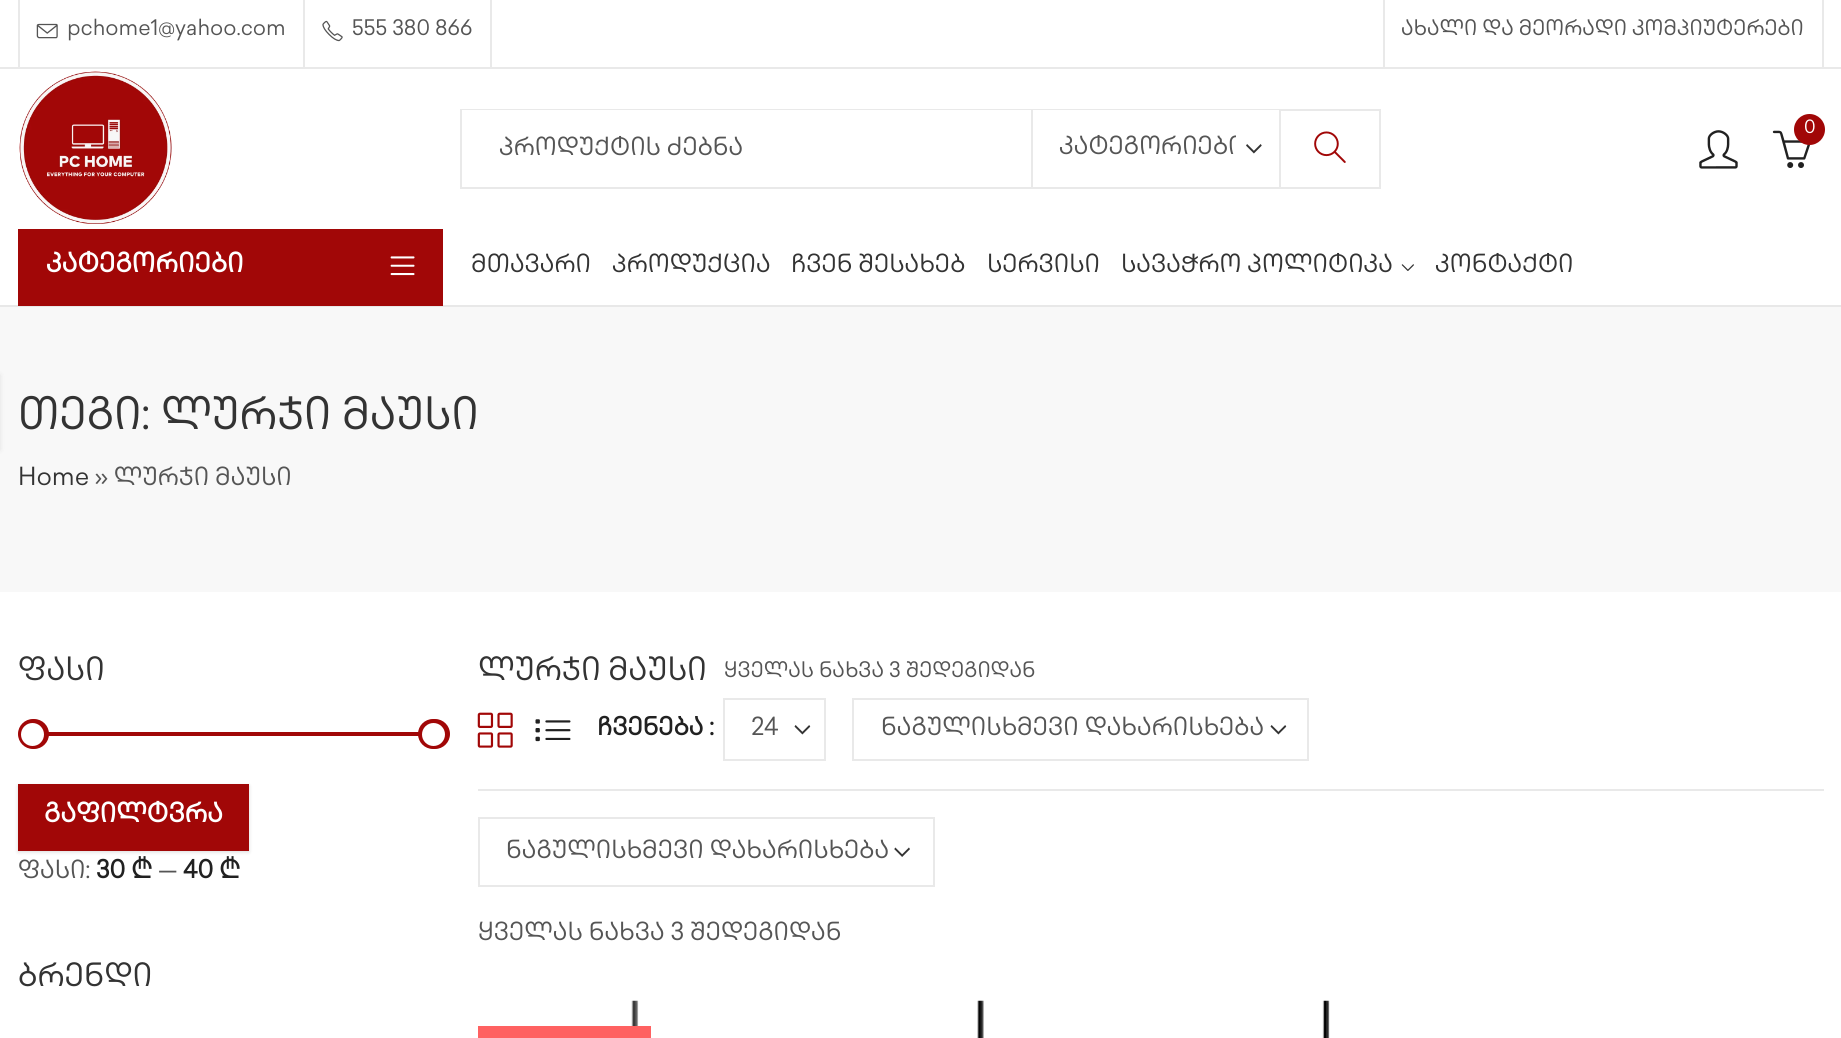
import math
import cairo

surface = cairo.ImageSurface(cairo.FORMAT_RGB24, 1841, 1038)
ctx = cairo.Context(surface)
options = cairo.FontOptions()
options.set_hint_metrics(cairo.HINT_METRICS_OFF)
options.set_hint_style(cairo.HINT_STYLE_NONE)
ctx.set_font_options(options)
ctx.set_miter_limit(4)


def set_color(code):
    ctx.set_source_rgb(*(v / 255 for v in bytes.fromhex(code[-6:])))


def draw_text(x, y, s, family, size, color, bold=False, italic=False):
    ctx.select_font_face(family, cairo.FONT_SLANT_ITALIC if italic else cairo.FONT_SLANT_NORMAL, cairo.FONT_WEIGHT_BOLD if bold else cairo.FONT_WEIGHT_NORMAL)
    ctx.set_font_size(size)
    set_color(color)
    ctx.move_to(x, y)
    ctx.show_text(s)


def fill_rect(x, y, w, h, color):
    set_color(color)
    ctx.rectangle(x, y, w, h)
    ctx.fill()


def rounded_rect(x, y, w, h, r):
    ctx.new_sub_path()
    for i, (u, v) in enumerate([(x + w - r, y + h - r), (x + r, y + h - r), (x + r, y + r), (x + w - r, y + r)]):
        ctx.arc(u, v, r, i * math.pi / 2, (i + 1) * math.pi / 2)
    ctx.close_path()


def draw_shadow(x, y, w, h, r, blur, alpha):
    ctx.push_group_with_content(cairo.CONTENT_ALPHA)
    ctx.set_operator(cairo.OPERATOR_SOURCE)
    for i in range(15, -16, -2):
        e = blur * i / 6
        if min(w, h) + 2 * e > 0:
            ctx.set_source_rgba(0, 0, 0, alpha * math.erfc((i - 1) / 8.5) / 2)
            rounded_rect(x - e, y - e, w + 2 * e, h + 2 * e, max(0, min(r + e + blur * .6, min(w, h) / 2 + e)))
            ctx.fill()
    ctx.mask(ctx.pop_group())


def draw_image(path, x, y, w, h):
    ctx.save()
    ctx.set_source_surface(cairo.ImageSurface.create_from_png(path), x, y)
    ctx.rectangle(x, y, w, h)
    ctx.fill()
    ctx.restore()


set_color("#ffffff")
ctx.paint()
fill_rect(0, 307, 1841, 285, "#f8f8f8")
set_color("#000000")
draw_shadow(-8, 375, 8, 75, 0, 2.5, 0.1)
fill_rect(0, 67, 1841, 2, "#e9e9e9")
fill_rect(18, 0, 2, 67, "#e9e9e9")
draw_image("assets/img1.png", 36, 23, 22, 16)
draw_text(67, 35, "pchome1@yahoo.com", "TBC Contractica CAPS", 21, "#555555")
fill_rect(490, 0, 2, 67, "#e9e9e9")
fill_rect(303, 0, 2, 67, "#e9e9e9")
draw_image("assets/img2.png", 322, 20, 21, 22)
draw_text(352, 35, "555 380 866", "TBC Contractica CAPS", 21, "#555555")
fill_rect(1822, 0, 2, 67, "#e9e9e9")
fill_rect(1383, 0, 2, 67, "#e9e9e9")
draw_text(1401, 35, "ახალი და მეორადი კომპიუტერები", "TBC Contractica CAPS", 21, "#555555")
draw_image("assets/img3.png", 19, 71, 153, 153)
draw_image("assets/img4.png", 1772, 130, 39, 38)
set_color("#a10707")
ctx.arc(1809.5, 129.5, 15.5, 0, 2 * math.pi)
ctx.fill()
draw_text(1804, 133, "0", "TBC Contractica CAPS", 18, "#ffffff")
draw_image("assets/img5.png", 1699, 130, 39, 39)
ctx.rectangle(461, 110, 919, 78)
set_color("#e9e9e9")
ctx.stroke()
fill_rect(462, 110, 569, 1, "#ffffff")
fill_rect(1031, 110, 2, 77, "#e9e9e9")
draw_text(499, 155, "პროდუქტის ძებნა", "TBC Contractica CAPS", 24.5, "#555555")
fill_rect(1033, 110, 246, 1, "#ffffff")
draw_image("assets/img6.png", 1246, 144, 16, 10)
fill_rect(1279, 110, 2, 77, "#e9e9e9")
ctx.save()
ctx.rectangle(1059, 130, 177, 38)
ctx.clip()
draw_text(1059, 154, "კატეგორიები", "TBC Contractica CAPS", 24.5, "#555555")
ctx.restore()
draw_image("assets/img7.png", 1314, 131, 32, 32)
fill_rect(0, 305, 1841, 2, "#e8e8e8")
fill_rect(18, 229, 425, 77, "#a10707")
draw_text(46, 272, "კატეგორიები", "TBC Contractica CAPS", 26.25, "#ffffff", bold=True)
draw_image("assets/img8.png", 390, 256, 25, 20)
draw_text(471, 272, "მთავარი", "TBC Contractica CAPS", 24.5, "#333333")
draw_text(612, 272, "პროდუქცია", "TBC Contractica CAPS", 24.5, "#333333")
draw_text(791, 272, "ჩვენ შესახებ", "TBC Contractica CAPS", 24.5, "#333333")
draw_text(987, 272, "სერვისი", "TBC Contractica CAPS", 24.5, "#333333")
draw_text(1121, 272, "სავაჭრო პოლიტიკა", "TBC Contractica CAPS", 24.5, "#333333")
draw_image("assets/img9.png", 1401, 264, 13, 7)
draw_text(1435, 272, "კონტაქტი", "TBC Contractica CAPS", 24.5, "#333333")
draw_text(18, 429, "თეგი: ლურჯი მაუსი", "TBC Contractica CAPS", 43.75, "#333333")
draw_text(18, 485, "Home", "TBC Contractica CAPS", 24.5, "#333333")
draw_text(95, 485, "» ლურჯი მაუსი", "TBC Contractica CAPS", 24.5, "#555555")
draw_text(18, 680, "ფასი", "TBC Contractica CAPS", 31.5, "#333333")
fill_rect(48, 732, 371, 4, "#a10707")
rounded_rect(18, 719, 31, 30, 15)
ctx.fill()
set_color("#ffffff")
ctx.arc(32.5, 734.5, 11.5, 0, 2 * math.pi)
ctx.fill()
set_color("#a10707")
rounded_rect(418, 719, 32, 30, 15)
ctx.fill()
set_color("#ffffff")
ctx.arc(433.5, 734.5, 11.5, 0, 2 * math.pi)
ctx.fill()
set_color("#000000")
draw_shadow(18, 786, 231, 66, 0, 2, 0.15)
fill_rect(18, 784, 231, 67, "#a10707")
draw_text(44, 822, "გაფილტვრა", "TBC Contractica CAPS", 26.25, "#ffffff", bold=True)
draw_text(18, 878, "ფასი:", "TBC Contractica CAPS", 24.5, "#555555")
draw_text(96, 878, "30 ₾", "TBC Contractica CAPS", 24.5, "#212121", bold=True)
draw_text(158, 878, "—", "TBC Contractica CAPS", 24.5, "#555555")
draw_text(183, 878, "40 ₾", "TBC Contractica CAPS", 24.5, "#212121", bold=True)
draw_text(18, 986, "ბრენდი", "TBC Contractica CAPS", 31.5, "#333333")
fill_rect(478, 789, 1346, 2, "#e9e9e9")
draw_text(478, 680, "ლურჯი მაუსი", "TBC Contractica CAPS", 31.5, "#333333")
draw_text(724, 677, "ყველას ნახვა 3 შედეგიდან", "TBC Contractica CAPS", 21, "#555555")
draw_image("assets/img10.png", 477, 712, 36, 36)
draw_image("assets/img11.png", 535, 719, 36, 23)
draw_text(597, 735, "ჩვენება :", "TBC Contractica CAPS", 24.5, "#212121", bold=True)
draw_image("assets/img12.png", 794, 725, 17, 10)
ctx.rectangle(724, 699, 101, 61)
set_color("#e9e9e9")
ctx.stroke()
draw_text(751, 735, "24", "TBC Contractica CAPS", 24.5, "#555555")
draw_image("assets/img12.png", 1270, 725, 17, 10)
ctx.rectangle(853, 699, 455, 61)
set_color("#e9e9e9")
ctx.stroke()
draw_text(881, 735, "ნაგულისხმევი დახარისხება", "TBC Contractica CAPS", 24.5, "#555555")
draw_image("assets/img13.png", 894, 847, 16, 10)
ctx.rectangle(479, 818, 455, 68)
set_color("#e9e9e9")
ctx.stroke()
draw_text(506, 858, "ნაგულისხმევი დახარისხება", "TBC Contractica CAPS", 24.5, "#555555")
draw_text(478, 940, "ყველას ნახვა 3 შედეგიდან", "TBC Contractica CAPS", 24.5, "#555555")
draw_image("assets/img14.png", 631, 1000, 8, 26)
fill_rect(478, 1026, 173, 12, "#ff6161")
draw_image("assets/img15.png", 977, 1000, 7, 38)
draw_image("assets/img16.png", 1322, 1000, 8, 38)
surface.write_to_png("output.png")
